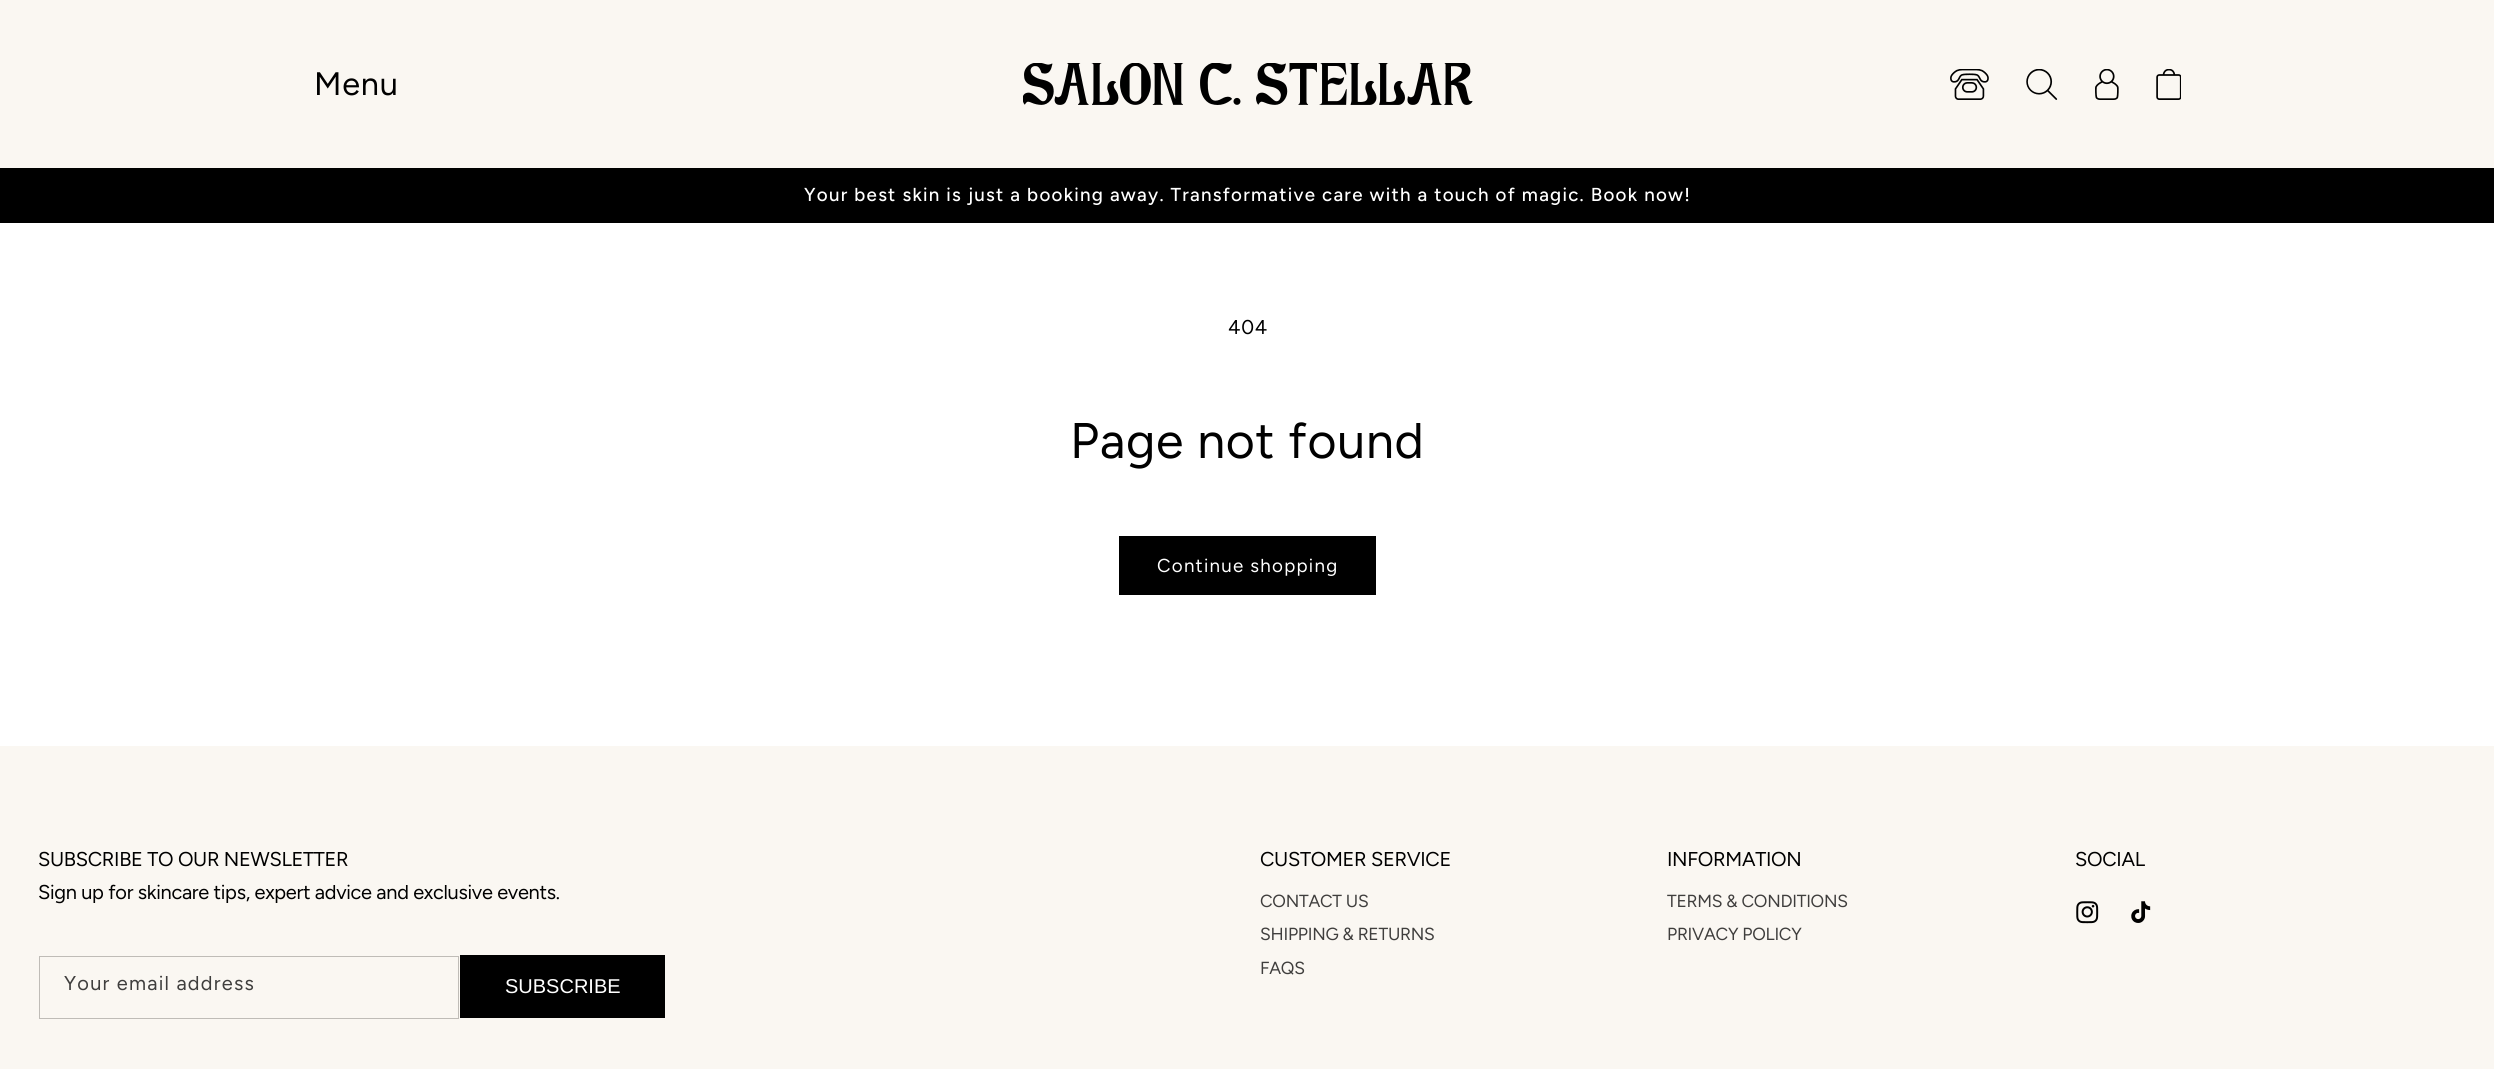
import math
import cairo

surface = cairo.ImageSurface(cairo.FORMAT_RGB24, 2494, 1069)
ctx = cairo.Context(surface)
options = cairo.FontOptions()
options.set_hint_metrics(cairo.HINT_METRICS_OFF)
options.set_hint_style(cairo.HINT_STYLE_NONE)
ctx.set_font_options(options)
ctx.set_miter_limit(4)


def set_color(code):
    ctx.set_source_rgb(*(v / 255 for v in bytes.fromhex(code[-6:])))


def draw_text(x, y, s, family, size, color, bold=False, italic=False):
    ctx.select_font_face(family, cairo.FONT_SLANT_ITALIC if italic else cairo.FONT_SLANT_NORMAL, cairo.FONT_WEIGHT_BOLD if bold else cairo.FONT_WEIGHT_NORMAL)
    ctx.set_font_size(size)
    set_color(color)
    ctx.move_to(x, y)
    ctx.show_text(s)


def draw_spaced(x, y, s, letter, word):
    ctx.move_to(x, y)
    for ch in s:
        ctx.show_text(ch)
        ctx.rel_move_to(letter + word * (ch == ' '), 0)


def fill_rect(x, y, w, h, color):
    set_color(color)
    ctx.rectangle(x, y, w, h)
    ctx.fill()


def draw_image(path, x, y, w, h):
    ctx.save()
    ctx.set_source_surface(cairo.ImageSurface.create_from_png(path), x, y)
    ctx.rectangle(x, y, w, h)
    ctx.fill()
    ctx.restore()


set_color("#ffffff")
ctx.paint()
fill_rect(0, 0, 2494, 168, "#faf7f2")
ctx.select_font_face("Figtree")
ctx.set_font_size(32.5)
set_color("#000000")
draw_spaced(314, 95, "Menu", 0.75, 0)
draw_image("assets/img1.png", 1023, 63, 450, 42)
draw_image("assets/img2.png", 1950, 69, 39, 31)
draw_image("assets/img3.png", 2026, 69, 32, 31)
draw_image("assets/img4.png", 2095, 69, 24, 31)
draw_image("assets/img5.png", 2156, 69, 25, 31)
fill_rect(0, 168, 2494, 55, "#000000")
ctx.select_font_face("Figtree Medium")
ctx.set_font_size(18.75)
set_color("#ffffff")
draw_spaced(804, 201, "Your best skin is just a booking away. Transformative care with a touch of magic. Book now!", 1.25, 0)
ctx.select_font_face("Figtree")
ctx.set_font_size(20)
set_color("#000000")
draw_spaced(1228, 334, "404", 0.75, 0)
ctx.set_font_size(50)
draw_spaced(1070, 458, "Page not found", 0.75, 0)
fill_rect(1119, 536, 257, 59, "#000000")
ctx.set_font_size(18.75)
set_color("#ffffff")
draw_spaced(1157, 572, "Continue shopping", 1.25, 0)
fill_rect(0, 746, 2494, 323, "#faf7f2")
ctx.set_font_size(20)
set_color("#000000")
draw_spaced(38, 866, "SUBSCRIBE TO OUR NEWSLETTER", -0.3, 0)
draw_spaced(38, 899, "Sign up for skincare tips, expert advice and exclusive events.", -0.3, 0)
ctx.rectangle(39.5, 956.5, 419, 62)
set_color("#bfbcb7")
ctx.set_line_width(1)
ctx.stroke()
set_color("#3f3e3d")
draw_spaced(64, 990, "Your email address", 1.25, 0)
fill_rect(460, 955, 205, 63, "#000000")
draw_text(505, 993, "SUBSCRIBE", "Liberation Sans", 20, "#ffffff")
ctx.select_font_face("Figtree")
set_color("#000000")
draw_spaced(1260, 866, "CUSTOMER SERVICE", -0.3, 0)
ctx.set_font_size(17.5)
set_color("#3f3e3d")
draw_spaced(1260, 907, "CONTACT US", -0.25, 0)
draw_spaced(1260, 940, "SHIPPING & RETURNS", -0.25, 0)
draw_spaced(1260, 974, "FAQS", -0.25, 0)
ctx.set_font_size(20)
set_color("#000000")
draw_spaced(1667, 866, "INFORMATION", -0.3, 0)
ctx.set_font_size(17.5)
set_color("#3f3e3d")
draw_spaced(1667, 907, "TERMS & CONDITIONS", -0.25, 0)
draw_spaced(1667, 940, "PRIVACY POLICY", -0.25, 0)
ctx.set_font_size(20)
set_color("#000000")
draw_spaced(2075, 866, "SOCIAL", -0.3, 0)
draw_image("assets/img6.png", 2076, 901, 23, 23)
draw_image("assets/img7.png", 2131, 901, 20, 22)
surface.write_to_png("output.png")
